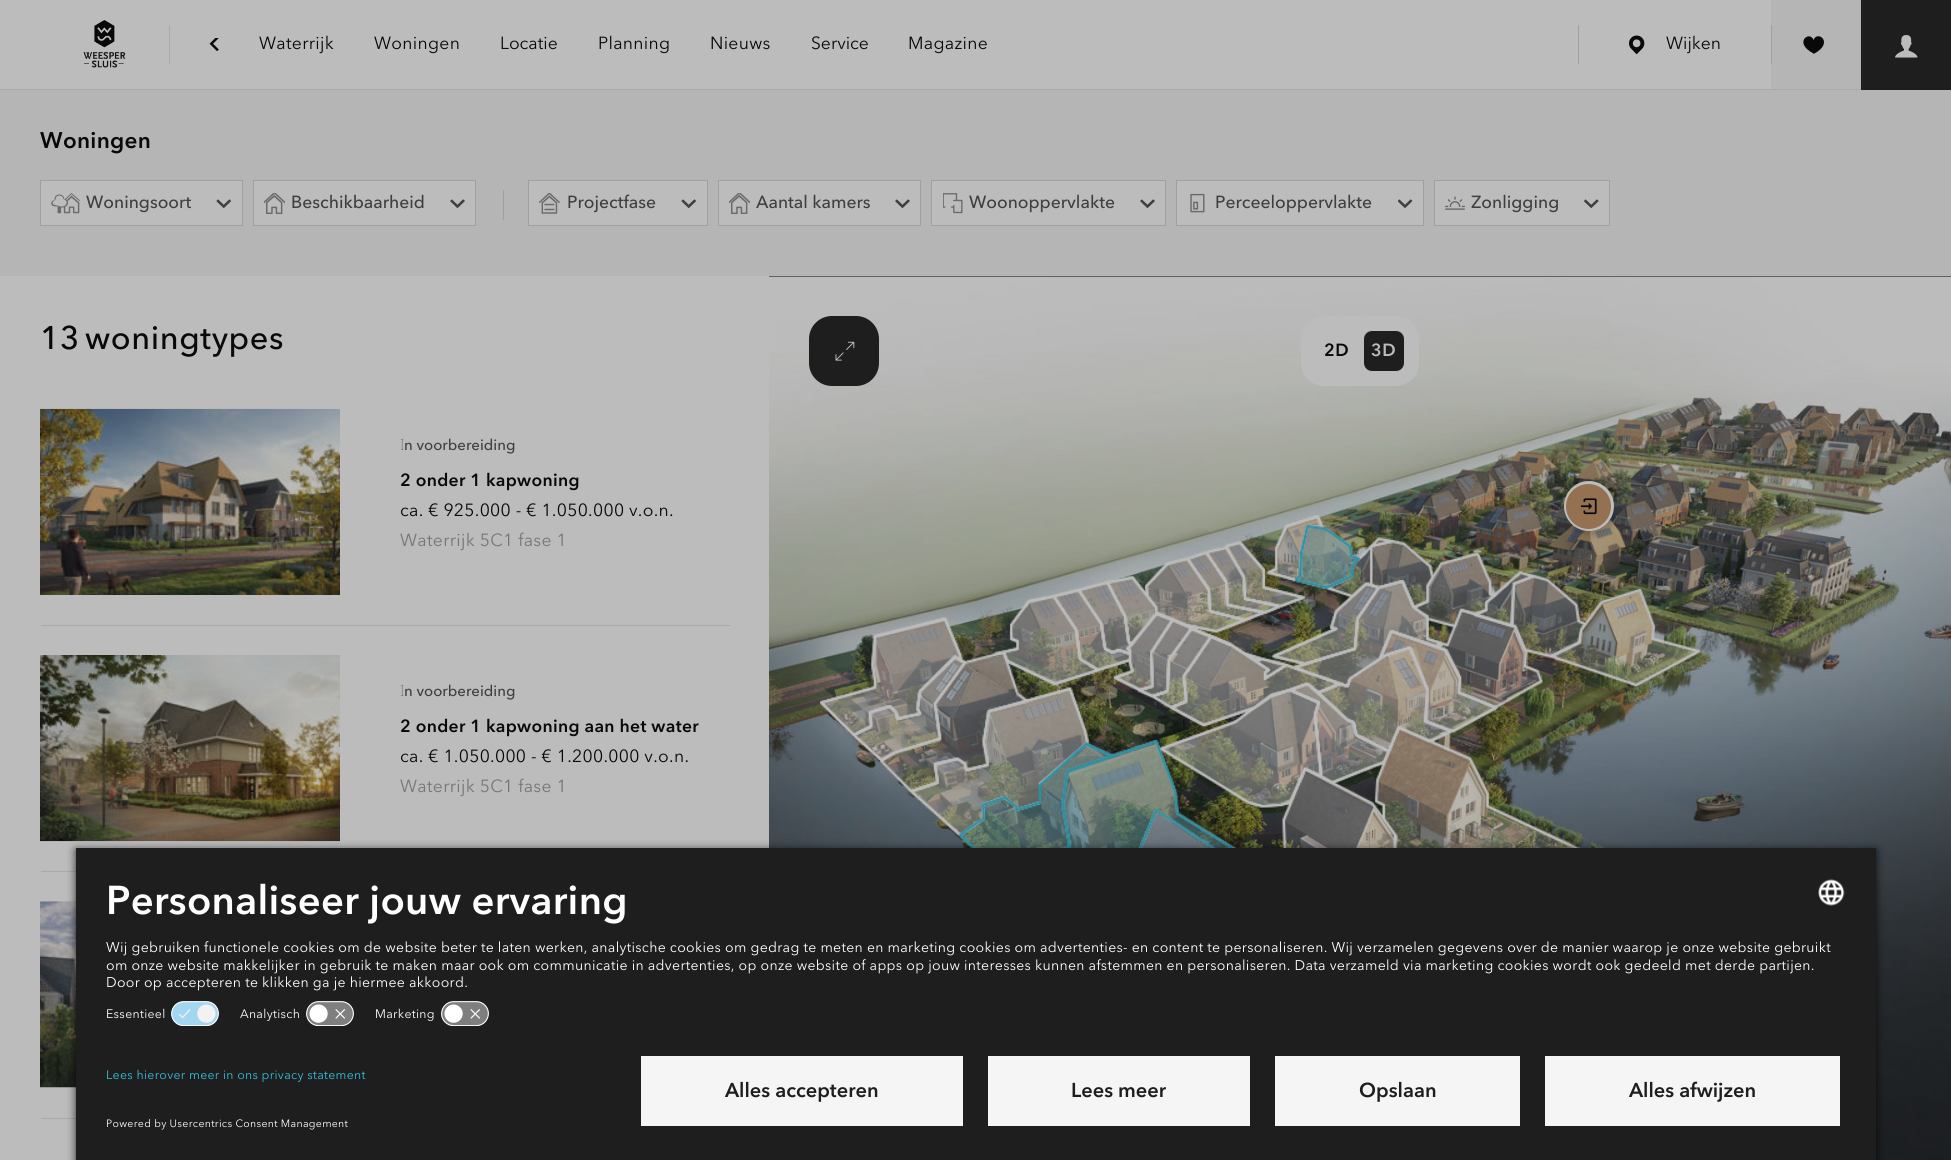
import math
import cairo

surface = cairo.ImageSurface(cairo.FORMAT_RGB24, 1951, 1160)
ctx = cairo.Context(surface)
options = cairo.FontOptions()
options.set_hint_metrics(cairo.HINT_METRICS_OFF)
options.set_hint_style(cairo.HINT_STYLE_NONE)
ctx.set_font_options(options)
ctx.set_miter_limit(4)


def set_color(code):
    ctx.set_source_rgb(*(v / 255 for v in bytes.fromhex(code[-6:])))


def draw_text(x, y, s, family, size, color, bold=False, italic=False):
    ctx.select_font_face(family, cairo.FONT_SLANT_ITALIC if italic else cairo.FONT_SLANT_NORMAL, cairo.FONT_WEIGHT_BOLD if bold else cairo.FONT_WEIGHT_NORMAL)
    ctx.set_font_size(size)
    set_color(color)
    ctx.move_to(x, y)
    ctx.show_text(s)


def draw_spaced(x, y, s, letter, word):
    ctx.move_to(x, y)
    for ch in s:
        ctx.show_text(ch)
        ctx.rel_move_to(letter + word * (ch == ' '), 0)


def fill_rect(x, y, w, h, color):
    set_color(color)
    ctx.rectangle(x, y, w, h)
    ctx.fill()


def rounded_rect(x, y, w, h, r):
    ctx.new_sub_path()
    for i, (u, v) in enumerate([(x + w - r, y + h - r), (x + r, y + h - r), (x + r, y + r), (x + w - r, y + r)]):
        ctx.arc(u, v, r, i * math.pi / 2, (i + 1) * math.pi / 2)
    ctx.close_path()


def draw_shadow(x, y, w, h, r, blur, alpha):
    ctx.push_group_with_content(cairo.CONTENT_ALPHA)
    ctx.set_operator(cairo.OPERATOR_SOURCE)
    for i in range(15, -16, -2):
        e = blur * i / 6
        if min(w, h) + 2 * e > 0:
            ctx.set_source_rgba(0, 0, 0, alpha * math.erfc((i - 1) / 8.5) / 2)
            rounded_rect(x - e, y - e, w + 2 * e, h + 2 * e, max(0, min(r + e + blur * .6, min(w, h) / 2 + e)))
            ctx.fill()
    ctx.mask(ctx.pop_group())


def draw_image(path, x, y, w, h):
    ctx.save()
    ctx.set_source_surface(cairo.ImageSurface.create_from_png(path), x, y)
    ctx.rectangle(x, y, w, h)
    ctx.fill()
    ctx.restore()


set_color("#bcbcbc")
ctx.paint()
fill_rect(0, 89, 1861, 1, "#aaaaaa")
draw_image("assets/img1.png", 83, 20, 43, 48)
fill_rect(169, 25, 1, 39, "#aaaaaa")
draw_image("assets/img2.png", 209, 38, 10, 13)
ctx.select_font_face("Avenir Next")
ctx.set_font_size(17.5)
set_color("#090909")
draw_spaced(259, 49, "Waterrijk", 0.31, 0)
draw_spaced(374, 49, "Woningen", 0.31, 0)
draw_text(500, 49, "Locatie", "Avenir Next", 17.5, "#090909")
draw_spaced(598, 49, "Planning", 0.31, 0)
draw_spaced(710, 49, "Nieuws", 0.31, 0)
draw_text(811, 49, "Service", "Avenir Next", 17.5, "#090909")
draw_spaced(908, 49, "Magazine", 0.31, 0)
fill_rect(1578, 25, 1, 39, "#a0a0a0")
draw_image("assets/img3.png", 1629, 35, 16, 20)
draw_text(1666, 49, "Wijken", "Avenir Next", 17.5, "#090909")
fill_rect(1771, 0, 90, 89, "#b5b5b5")
fill_rect(1771, 25, 1, 39, "#a0a0a0")
set_color("#090909")
ctx.new_path()
ctx.move_to(1813.5, 54)
ctx.line_to(1813.5, 53.5)
ctx.curve_to(1792.5, 42.5, 1810, 30, 1813.5, 40)
ctx.curve_to(1817.5, 29.5, 1835, 43, 1813.5, 54)
ctx.close_path()
ctx.fill()
fill_rect(1861, 0, 90, 90, "#1e1e1e")
draw_image("assets/img4.png", 1895, 35, 23, 23)
fill_rect(0, 90, 1951, 186, "#b5b5b5")
ctx.select_font_face("Avenir Next", cairo.FONT_SLANT_NORMAL, cairo.FONT_WEIGHT_BOLD)
ctx.set_font_size(22.5)
set_color("#090909")
draw_spaced(40, 148, "Woningen", 0.31, 0)
set_color("#bcbcbc")
ctx.rectangle(40.5, 180.5, 202, 45)
ctx.fill_preserve()
set_color("#a0a0a0")
ctx.set_line_width(1)
ctx.stroke()
draw_image("assets/img5.png", 51, 193, 29, 21)
draw_text(86, 208, "Woningsoort", "Avenir Next Medium", 17.5, "#3f3f3f")
draw_image("assets/img6.png", 216, 199, 15, 10)
set_color("#bcbcbc")
ctx.rectangle(253.5, 180.5, 222, 45)
ctx.fill_preserve()
set_color("#a0a0a0")
ctx.stroke()
draw_image("assets/img7.png", 264, 193, 21, 21)
draw_text(291, 208, "Beschikbaarheid", "Avenir Next Medium", 17.5, "#3f3f3f")
draw_image("assets/img8.png", 450, 199, 15, 10)
fill_rect(503, 190, 1, 30, "#a0a0a0")
set_color("#bcbcbc")
ctx.rectangle(528.5, 180.5, 179, 45)
ctx.fill_preserve()
set_color("#a0a0a0")
ctx.stroke()
draw_image("assets/img9.png", 539, 193, 21, 21)
draw_text(567, 208, "Projectfase", "Avenir Next Medium", 17.5, "#3f3f3f")
draw_image("assets/img6.png", 681, 199, 15, 10)
set_color("#bcbcbc")
ctx.rectangle(718.5, 180.5, 202, 45)
ctx.fill_preserve()
set_color("#a0a0a0")
ctx.stroke()
draw_image("assets/img7.png", 729, 193, 21, 21)
draw_text(756, 208, "Aantal kamers", "Avenir Next Medium", 17.5, "#3f3f3f")
draw_image("assets/img8.png", 895, 199, 15, 10)
set_color("#bcbcbc")
ctx.rectangle(931.5, 180.5, 234, 45)
ctx.fill_preserve()
set_color("#a0a0a0")
ctx.stroke()
draw_image("assets/img10.png", 943, 193, 20, 21)
draw_text(969, 208, "Woonoppervlakte", "Avenir Next Medium", 17.5, "#3f3f3f")
draw_image("assets/img8.png", 1140, 199, 15, 10)
set_color("#bcbcbc")
ctx.rectangle(1176.5, 180.5, 247, 45)
ctx.fill_preserve()
set_color("#a0a0a0")
ctx.stroke()
draw_image("assets/img11.png", 1190, 193, 15, 20)
draw_text(1215, 208, "Perceeloppervlakte", "Avenir Next Medium", 17.5, "#3f3f3f")
draw_image("assets/img12.png", 1398, 199, 15, 10)
set_color("#bcbcbc")
ctx.rectangle(1434.5, 180.5, 175, 45)
ctx.fill_preserve()
set_color("#a0a0a0")
ctx.stroke()
draw_image("assets/img13.png", 1445, 196, 20, 14)
draw_text(1471, 208, "Zonligging", "Avenir Next Medium", 17.5, "#3f3f3f")
draw_image("assets/img14.png", 1584, 199, 15, 10)
ctx.set_font_size(32.5)
set_color("#090909")
draw_spaced(40, 349, "13", 0.6, 0)
draw_spaced(85, 349, "woningtypes", 0.6, 0)
draw_image("assets/img15.png", 40, 408, 300, 187)
draw_text(400, 450, "I", "Noto Sans Thin", 15, "#3f3f3f")
draw_text(404, 450, "n voorbereiding", "Avenir Next Medium", 15, "#3f3f3f")
ctx.select_font_face("Avenir Next", cairo.FONT_SLANT_NORMAL, cairo.FONT_WEIGHT_BOLD)
ctx.set_font_size(17.5)
set_color("#090909")
draw_spaced(400, 486, "2 onder 1 kapwoning", 0.31, 0)
ctx.select_font_face("Avenir Next")
draw_spaced(400, 516, "ca. € 925.000 - € 1.050.000 v.o.n.", 0.31, 0)
set_color("#767676")
draw_spaced(400, 546, "Waterrijk 5C1 fase 1", 0.31, 0)
fill_rect(41, 625, 689, 1, "#aaaaaa")
draw_image("assets/img16.png", 40, 655, 300, 187)
draw_text(400, 696, "I", "Noto Sans Thin", 15, "#3f3f3f")
draw_text(404, 696, "n voorbereiding", "Avenir Next Medium", 15, "#3f3f3f")
ctx.select_font_face("Avenir Next", cairo.FONT_SLANT_NORMAL, cairo.FONT_WEIGHT_BOLD)
ctx.set_font_size(17.5)
set_color("#090909")
draw_spaced(400, 732, "2 onder 1 kapwoning aan het water", 0.31, 0)
ctx.select_font_face("Avenir Next")
draw_spaced(400, 762, "ca. € 1.050.000 - € 1.200.000 v.o.n.", 0.31, 0)
set_color("#767676")
draw_spaced(400, 792, "Waterrijk 5C1 fase 1", 0.31, 0)
fill_rect(41, 871, 35, 1, "#aaaaaa")
draw_image("assets/img17.png", 40, 901, 36, 187)
fill_rect(41, 1118, 35, 1, "#aaaaaa")
fill_rect(769, 276, 1182, 1, "#1e1e1e")
draw_image("assets/img18.png", 769, 276, 1182, 884)
draw_image("assets/img20.png", 819, 515, 882, 333)
set_color("#1e1e1e")
draw_shadow(1566, 484, 50, 50, 25, 4, 0.3)
set_color("#bcbcbc")
ctx.arc(1589, 506, 25, 0, 2 * math.pi)
ctx.fill()
set_color("#947251")
ctx.arc(1588.5, 506.5, 22.5, 0, 2 * math.pi)
ctx.fill()
draw_image("assets/img19.png", 1580, 498, 17, 17)
set_color("#1e1e1e")
rounded_rect(809, 316, 70, 70, 23)
ctx.fill()
draw_image("assets/img21.png", 835, 341, 20, 20)
set_color("#bcbcbc")
rounded_rect(1301, 316, 118, 70, 23)
ctx.fill()
ctx.select_font_face("Avenir Next", cairo.FONT_SLANT_NORMAL, cairo.FONT_WEIGHT_BOLD)
set_color("#090909")
draw_spaced(1324, 356, "2D", 0.6, 0)
set_color("#1e1e1e")
rounded_rect(1364, 331, 40, 40, 8)
ctx.fill()
set_color("#bcbcbc")
draw_spaced(1371, 356, "3D", 0.6, 0)
set_color("#000000")
draw_shadow(76, 850, 1800, 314, 0, 4.5, 0.8)
fill_rect(76, 848, 1800, 312, "#1e1e1e")
ctx.set_font_size(40)
set_color("#ffffff")
draw_spaced(106, 914, "Personaliseer jouw ervaring", 0.31, 0)
draw_image("assets/img22.png", 1818, 879, 27, 27)
ctx.select_font_face("Avenir Next")
ctx.set_font_size(14.06)
draw_spaced(106, 952, "Wij gebruiken functionele cookies om de website beter te laten werken, analytische cookies om gedrag te meten en marketing cookies om advertenties- en content te personaliseren. Wij verzamelen gegevens over de manier waarop je onze website gebruikt", 0.31, 0)
draw_spaced(106, 970, "om onze website makkelijker in gebruik te maken maar ook om communicatie in advertenties, op onze website of apps op jouw interesses kunnen afstemmen en personaliseren. Data verzameld via marketing cookies wordt ook gedeeld met derde partijen.", 0.31, 0)
draw_spaced(106, 987, "Door op accepteren te klikken ga je hiermee akkoord.", 0.31, 0)
ctx.set_font_size(12.3)
draw_spaced(106, 1018, "Essentieel", 0.31, 0)
draw_image("assets/img23.png", 171, 1001, 48, 25)
draw_spaced(240, 1018, "Analytisch", 0.31, 0)
draw_image("assets/img24.png", 306, 1001, 48, 25)
draw_spaced(375, 1018, "Marketing", 0.31, 0)
draw_image("assets/img24.png", 441, 1001, 48, 25)
set_color("#32c1de")
draw_spaced(106, 1079, "Lees hierover meer in ons privacy statement", 0.31, 0)
ctx.set_font_size(10.55)
set_color("#ffffff")
draw_spaced(106, 1127, "Powered by Usercentrics Consent Management", 0.31, 0)
fill_rect(641, 1056, 322, 70, "#f5f5f5")
draw_text(725, 1097, "Alles accepteren", "Avenir Next", 20, "#1e1e1e", bold=True)
fill_rect(988, 1056, 262, 70, "#f5f5f5")
draw_text(1071, 1097, "Lees meer", "Avenir Next", 20, "#1e1e1e", bold=True)
fill_rect(1275, 1056, 245, 70, "#f5f5f5")
draw_text(1359, 1097, "Opslaan", "Avenir Next", 20, "#1e1e1e", bold=True)
fill_rect(1545, 1056, 295, 70, "#f5f5f5")
draw_text(1629, 1097, "Alles afwijzen", "Avenir Next", 20, "#1e1e1e", bold=True)
surface.write_to_png("output.png")
